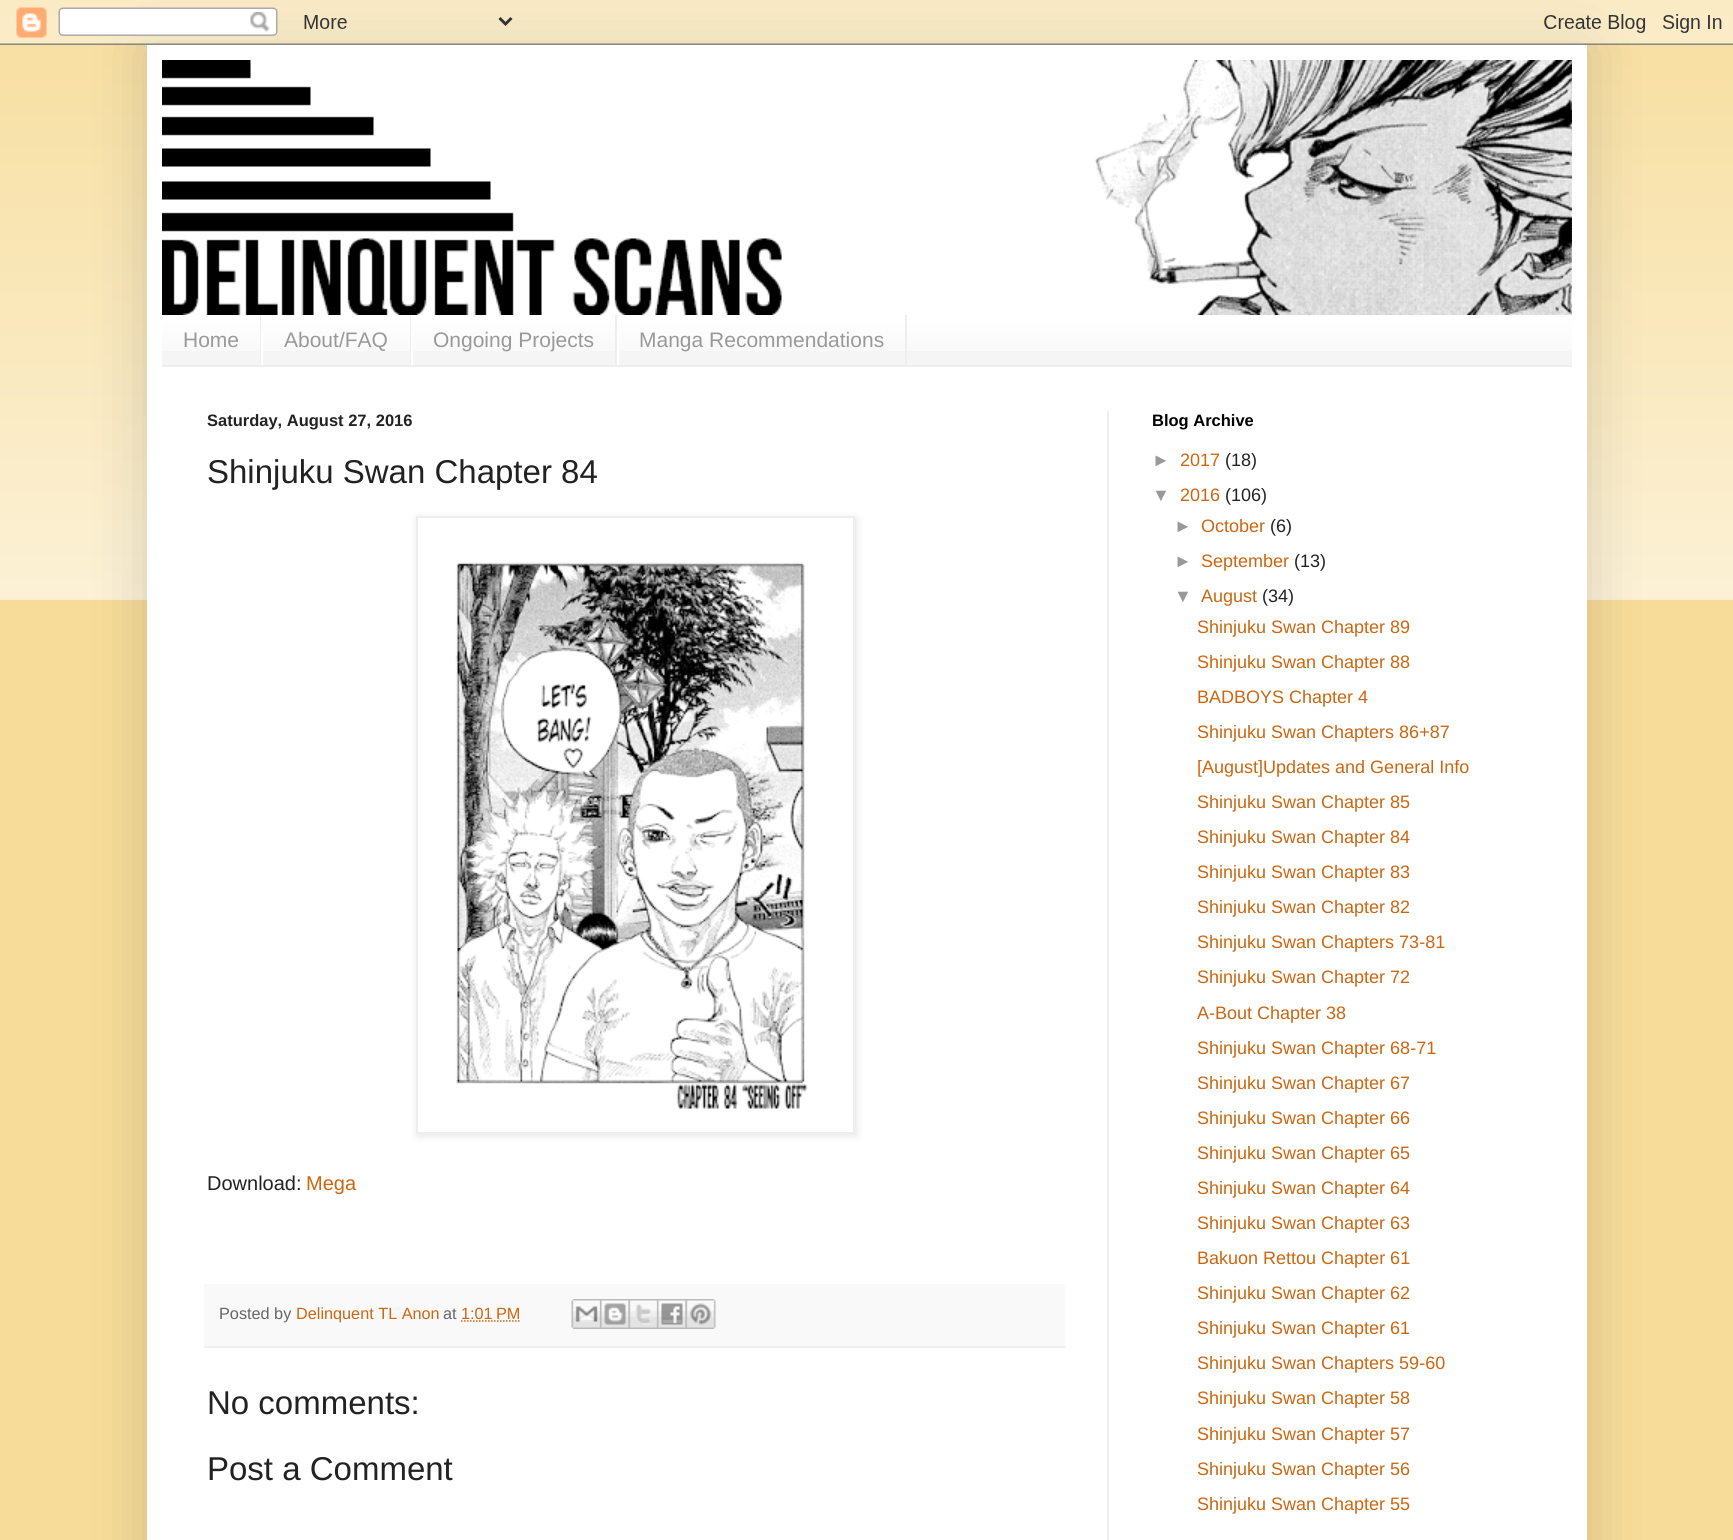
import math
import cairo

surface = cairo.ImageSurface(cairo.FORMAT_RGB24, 1733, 1540)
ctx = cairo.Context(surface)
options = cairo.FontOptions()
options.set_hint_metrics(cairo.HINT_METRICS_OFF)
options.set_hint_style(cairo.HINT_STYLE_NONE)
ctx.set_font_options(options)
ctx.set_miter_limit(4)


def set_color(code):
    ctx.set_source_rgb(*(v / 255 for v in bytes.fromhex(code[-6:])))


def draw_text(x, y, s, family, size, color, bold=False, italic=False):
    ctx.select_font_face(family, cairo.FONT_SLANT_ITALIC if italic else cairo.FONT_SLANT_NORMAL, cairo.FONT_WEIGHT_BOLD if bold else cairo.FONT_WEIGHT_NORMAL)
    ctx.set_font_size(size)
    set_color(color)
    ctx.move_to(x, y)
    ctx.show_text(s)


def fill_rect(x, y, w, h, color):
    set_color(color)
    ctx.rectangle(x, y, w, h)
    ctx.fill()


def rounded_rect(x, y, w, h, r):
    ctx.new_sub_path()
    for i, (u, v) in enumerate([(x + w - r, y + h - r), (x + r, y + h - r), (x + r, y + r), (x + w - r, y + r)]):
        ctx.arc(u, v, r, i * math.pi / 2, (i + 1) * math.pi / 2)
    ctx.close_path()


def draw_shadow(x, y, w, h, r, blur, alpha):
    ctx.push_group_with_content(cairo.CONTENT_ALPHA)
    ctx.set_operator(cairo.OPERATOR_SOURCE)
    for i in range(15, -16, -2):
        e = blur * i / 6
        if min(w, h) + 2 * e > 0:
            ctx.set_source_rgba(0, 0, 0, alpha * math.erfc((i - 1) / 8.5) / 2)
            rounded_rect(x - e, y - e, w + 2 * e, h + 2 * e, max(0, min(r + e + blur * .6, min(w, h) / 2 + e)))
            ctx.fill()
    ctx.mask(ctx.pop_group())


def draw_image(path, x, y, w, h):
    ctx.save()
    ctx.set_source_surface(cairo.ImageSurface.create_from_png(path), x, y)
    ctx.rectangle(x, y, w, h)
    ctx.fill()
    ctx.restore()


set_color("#f7dc99")
ctx.paint()
draw_image("assets/img1.png", 0, 0, 1733, 600)
set_color("#000000")
draw_shadow(147, 45, 1440, 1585, 0, 30, 0.15)
draw_image("assets/img2.png", 0, 0, 1733, 45)
fill_rect(147, 45, 1440, 1495, "#ffffff")
draw_image("assets/img3.png", 162, 60, 1410, 255)
fill_rect(162, 315, 1410, 50, "#f5f5f5")
draw_image("assets/img4.png", 162, 315, 1410, 36)
fill_rect(162, 365, 1410, 2, "#eeeeee")
fill_rect(260, 315, 1, 50, "#eeeeee")
draw_text(183, 347, "Home", "Liberation Sans", 21, "#999999")
fill_rect(410, 315, 1, 50, "#eeeeee")
fill_rect(261, 331, 2, 34, "#ffffff")
draw_text(284, 347, "About/FAQ", "Liberation Sans", 21, "#999999")
fill_rect(615, 315, 2, 50, "#eeeeee")
fill_rect(411, 331, 2, 34, "#ffffff")
draw_text(433, 347, "Ongoing Projects", "Liberation Sans", 21, "#999999")
fill_rect(905, 315, 2, 50, "#eeeeee")
fill_rect(617, 331, 2, 34, "#ffffff")
draw_text(639, 347, "Manga Recommendations", "Liberation Sans", 21, "#999999")
fill_rect(1107, 411, 2, 1129, "#eeeeee")
draw_text(207, 426, "Saturday, August 27, 2016", "Liberation Sans", 16.5, "#222222", bold=True)
draw_text(207, 483, "Shinjuku Swan Chapter 84", "Liberation Sans", 33, "#222222")
ctx.save()
ctx.set_fill_rule(cairo.FILL_RULE_EVEN_ODD)
ctx.new_path()
ctx.move_to(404, 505)
ctx.line_to(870, 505)
ctx.line_to(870, 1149)
ctx.line_to(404, 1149)
ctx.close_path()
ctx.move_to(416, 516)
ctx.line_to(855, 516)
ctx.line_to(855, 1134)
ctx.line_to(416, 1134)
ctx.close_path()
ctx.clip()
set_color("#000000")
draw_shadow(417, 518, 440, 618, 0, 4, 0.1)
ctx.restore()
ctx.rectangle(417, 517, 437, 616)
set_color("#eeeeee")
ctx.stroke()
draw_image("assets/img5.png", 455, 562, 353, 547)
draw_text(207, 1190, "Download:", "Liberation Sans", 20, "#222222")
draw_text(306, 1190, "Mega", "Liberation Sans", 20, "#cc6611")
fill_rect(204, 1284, 861, 62, "#f9f9f9")
fill_rect(204, 1346, 861, 2, "#eeeeee")
draw_text(219, 1319, "Posted by", "Liberation Sans", 16.25, "#666666")
draw_text(296, 1319, "Delinquent TL Anon", "Liberation Sans", 16.25, "#cc6611")
draw_text(443, 1319, "at", "Liberation Sans", 16.25, "#666666")
draw_text(461, 1319, "1:01 PM", "Liberation Sans", 16.25, "#cc6611")
ctx.new_path()
ctx.move_to(461, 1321)
ctx.line_to(520.5, 1321)
ctx.set_line_width(1.5)
ctx.set_dash([1.5, 1.5])
ctx.stroke()
draw_image("assets/img6.png", 571, 1299, 29, 30)
draw_image("assets/img7.png", 600, 1299, 29, 30)
draw_image("assets/img8.png", 628, 1299, 29, 30)
draw_image("assets/img9.png", 657, 1299, 29, 30)
draw_image("assets/img10.png", 685, 1299, 31, 30)
draw_text(207, 1414, "No comments:", "Liberation Sans", 33, "#222222")
draw_text(207, 1480, "Post a Comment", "Liberation Sans", 33, "#222222")
draw_text(1152, 426, "Blog Archive", "Liberation Sans", 16.5, "#000000", bold=True)
draw_text(1152, 466, "►", "Liberation Sans", 18, "#999999")
draw_text(1180, 466, "2017", "Liberation Sans", 18, "#cc6611")
draw_text(1225, 466, "(18)", "Liberation Sans", 18, "#222222")
draw_text(1152, 501, "▼", "Liberation Sans", 18, "#999999")
draw_text(1180, 501, "2016", "Liberation Sans", 18, "#cc6611")
draw_text(1225, 501, "(106)", "Liberation Sans", 18, "#222222")
draw_text(1174, 532, "►", "Liberation Sans", 18, "#999999")
draw_text(1201, 532, "October", "Liberation Sans", 18, "#cc6611")
draw_text(1270, 532, "(6)", "Liberation Sans", 18, "#222222")
draw_text(1174, 567, "►", "Liberation Sans", 18, "#999999")
draw_text(1201, 567, "September", "Liberation Sans", 18, "#cc6611")
draw_text(1294, 567, "(13)", "Liberation Sans", 18, "#222222")
draw_text(1174, 602, "▼", "Liberation Sans", 18, "#999999")
draw_text(1201, 602, "August", "Liberation Sans", 18, "#cc6611")
draw_text(1262, 602, "(34)", "Liberation Sans", 18, "#222222")
draw_text(1197, 633, "Shinjuku Swan Chapter 89", "Liberation Sans", 18, "#cc6611")
draw_text(1197, 668, "Shinjuku Swan Chapter 88", "Liberation Sans", 18, "#cc6611")
draw_text(1197, 703, "BADBOYS Chapter 4", "Liberation Sans", 18, "#cc6611")
draw_text(1197, 738, "Shinjuku Swan Chapters 86+87", "Liberation Sans", 18, "#cc6611")
draw_text(1197, 773, "[August]Updates and General Info", "Liberation Sans", 18, "#cc6611")
draw_text(1197, 808, "Shinjuku Swan Chapter 85", "Liberation Sans", 18, "#cc6611")
draw_text(1197, 843, "Shinjuku Swan Chapter 84", "Liberation Sans", 18, "#cc6611")
draw_text(1197, 878, "Shinjuku Swan Chapter 83", "Liberation Sans", 18, "#cc6611")
draw_text(1197, 913, "Shinjuku Swan Chapter 82", "Liberation Sans", 18, "#cc6611")
draw_text(1197, 948, "Shinjuku Swan Chapters 73-81", "Liberation Sans", 18, "#cc6611")
draw_text(1197, 983, "Shinjuku Swan Chapter 72", "Liberation Sans", 18, "#cc6611")
draw_text(1197, 1019, "A-Bout Chapter 38", "Liberation Sans", 18, "#cc6611")
draw_text(1197, 1054, "Shinjuku Swan Chapter 68-71", "Liberation Sans", 18, "#cc6611")
draw_text(1197, 1089, "Shinjuku Swan Chapter 67", "Liberation Sans", 18, "#cc6611")
draw_text(1197, 1124, "Shinjuku Swan Chapter 66", "Liberation Sans", 18, "#cc6611")
draw_text(1197, 1159, "Shinjuku Swan Chapter 65", "Liberation Sans", 18, "#cc6611")
draw_text(1197, 1194, "Shinjuku Swan Chapter 64", "Liberation Sans", 18, "#cc6611")
draw_text(1197, 1229, "Shinjuku Swan Chapter 63", "Liberation Sans", 18, "#cc6611")
draw_text(1197, 1264, "Bakuon Rettou Chapter 61", "Liberation Sans", 18, "#cc6611")
draw_text(1197, 1299, "Shinjuku Swan Chapter 62", "Liberation Sans", 18, "#cc6611")
draw_text(1197, 1334, "Shinjuku Swan Chapter 61", "Liberation Sans", 18, "#cc6611")
draw_text(1197, 1369, "Shinjuku Swan Chapters 59-60", "Liberation Sans", 18, "#cc6611")
draw_text(1197, 1404, "Shinjuku Swan Chapter 58", "Liberation Sans", 18, "#cc6611")
draw_text(1197, 1440, "Shinjuku Swan Chapter 57", "Liberation Sans", 18, "#cc6611")
draw_text(1197, 1475, "Shinjuku Swan Chapter 56", "Liberation Sans", 18, "#cc6611")
draw_text(1197, 1510, "Shinjuku Swan Chapter 55", "Liberation Sans", 18, "#cc6611")
surface.write_to_png("output.png")
